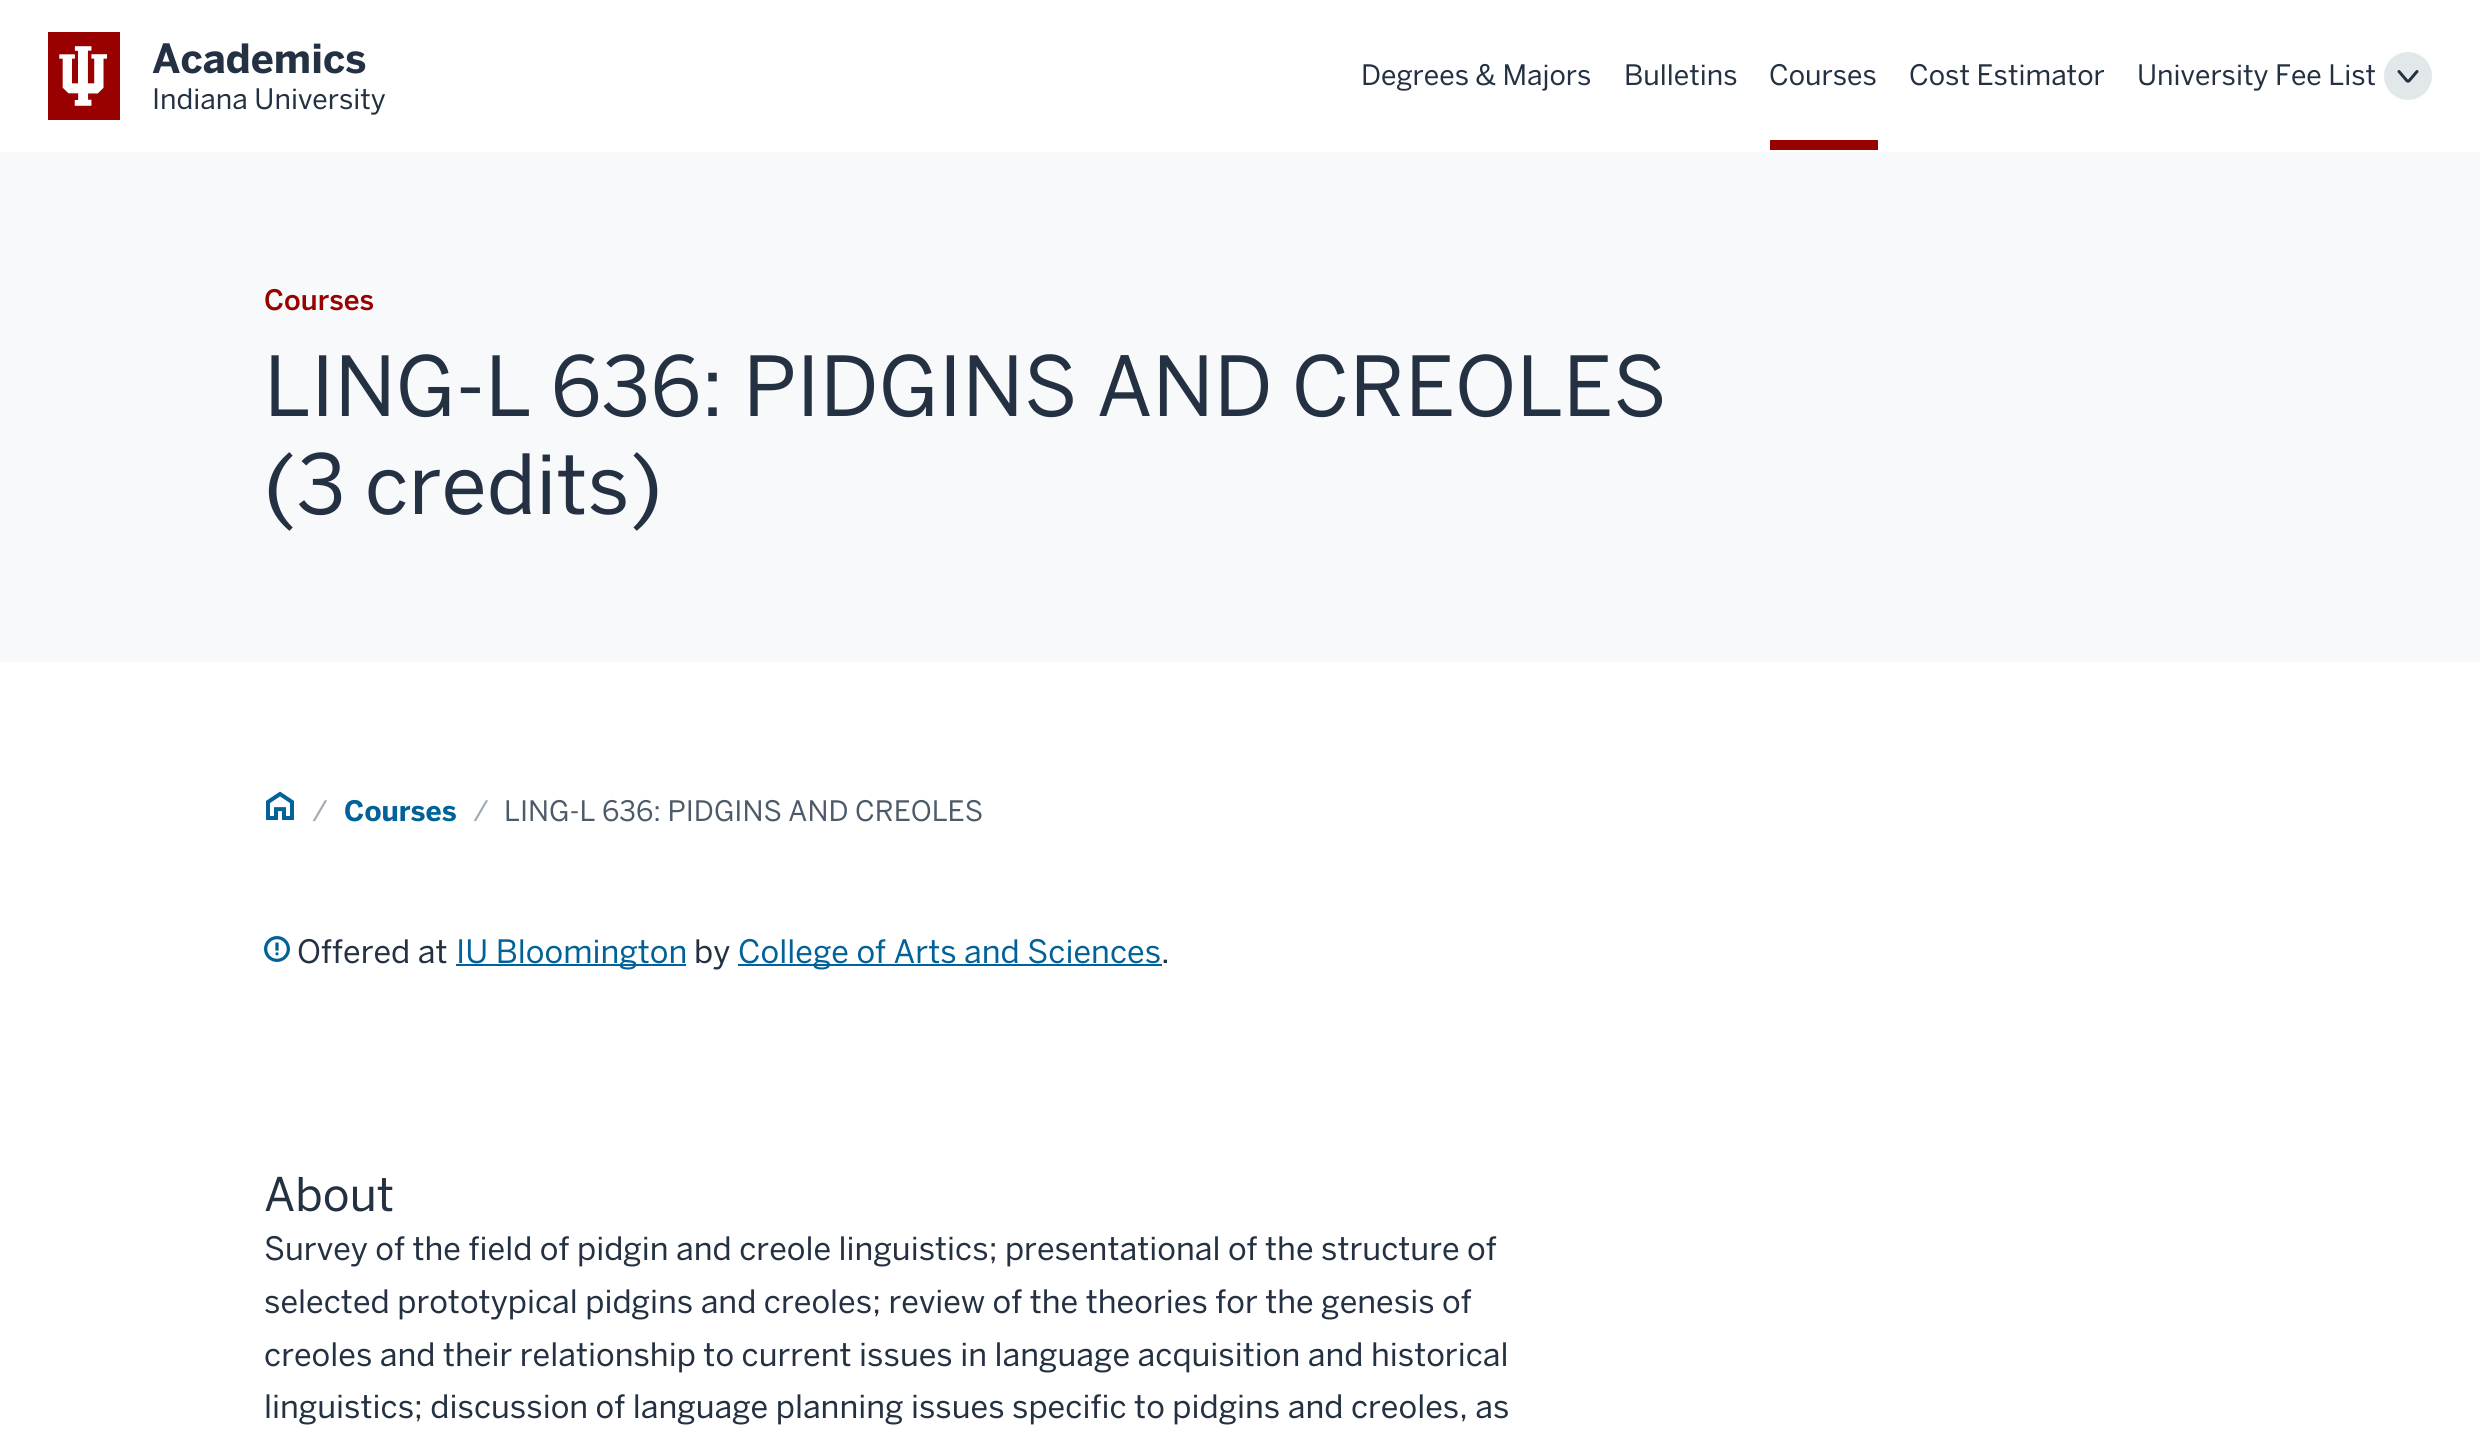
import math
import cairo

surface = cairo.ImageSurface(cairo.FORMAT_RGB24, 2480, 1448)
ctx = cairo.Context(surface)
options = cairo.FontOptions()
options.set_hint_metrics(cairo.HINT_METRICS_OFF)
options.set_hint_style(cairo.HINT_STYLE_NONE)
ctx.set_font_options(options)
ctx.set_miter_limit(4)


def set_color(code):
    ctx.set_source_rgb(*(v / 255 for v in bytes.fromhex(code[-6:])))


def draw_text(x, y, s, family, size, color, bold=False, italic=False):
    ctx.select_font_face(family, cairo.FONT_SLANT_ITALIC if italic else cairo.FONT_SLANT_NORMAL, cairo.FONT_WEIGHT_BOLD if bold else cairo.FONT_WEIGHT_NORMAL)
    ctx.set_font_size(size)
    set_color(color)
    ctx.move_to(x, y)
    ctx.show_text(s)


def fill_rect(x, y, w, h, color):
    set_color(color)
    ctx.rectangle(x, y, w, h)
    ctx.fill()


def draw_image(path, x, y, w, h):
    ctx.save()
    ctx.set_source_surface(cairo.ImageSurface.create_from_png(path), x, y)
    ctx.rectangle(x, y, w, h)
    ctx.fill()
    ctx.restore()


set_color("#ffffff")
ctx.paint()
fill_rect(48, 32, 72, 88, "#990000")
draw_image("assets/img1.png", 59, 46, 49, 60)
draw_text(152, 73, "Academics", "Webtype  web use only", 40, "#243142", bold=True)
draw_text(152, 109, "Indiana University", "Webtype  web use only", 28, "#243142")
draw_text(1361, 85, "Degrees & Majors", "Webtype  web use only", 28, "#243142")
draw_text(1624, 85, "Bulletins", "Webtype  web use only", 28, "#243142")
draw_text(1769, 85, "Courses", "Webtype  web use only", 28, "#243142")
fill_rect(1770, 140, 108, 10, "#990000")
draw_text(1909, 85, "Cost Estimator", "Webtype  web use only", 28, "#243142")
draw_text(2137, 85, "University Fee List", "Webtype  web use only", 28, "#243142")
set_color("#e2e7e9")
ctx.new_path()
ctx.arc(2408, 76, 24, 0, 2 * math.pi)
ctx.fill()
draw_image("assets/img2.png", 2397, 70, 22, 13)
fill_rect(0, 152, 2480, 510, "#f8f9fa")
draw_text(264, 310, "Courses", "Webtype  web use only Medium", 28, "#990000")
draw_text(264, 416, "LING-L 636: PIDGINS AND CREOLES", "Webtype  web use only", 82, "#243142")
draw_text(264, 514, "(3 credits)", "Webtype  web use only", 82, "#243142")
draw_image("assets/img3.png", 266, 791, 28, 29)
draw_text(312, 821, "/", "Webtype  web use only", 28, "#a0abb4")
draw_text(344, 821, "Courses", "Webtype  web use only", 28, "#006298", bold=True)
draw_text(473, 821, "/", "Webtype  web use only", 28, "#a0abb4")
draw_text(504, 821, "LING-L 636: PIDGINS AND CREOLES", "Webtype  web use only", 28, "#4c5a69")
draw_image("assets/img4.png", 264, 936, 26, 26)
draw_text(297, 963, "Offered at", "Webtype  web use only", 32, "#243142")
fill_rect(456, 964, 230, 2, "#006298")
draw_text(456, 963, "IU Bloomington", "Webtype  web use only", 32, "#006298")
draw_text(694, 963, "by", "Webtype  web use only", 32, "#243142")
fill_rect(738, 964, 424, 2, "#006298")
draw_text(738, 963, "College of Arts and Sciences", "Webtype  web use only", 32, "#006298")
draw_text(1161, 963, ".", "Webtype  web use only", 32, "#243142")
draw_text(264, 1211, "About", "Webtype  web use only", 46, "#243142")
draw_text(264, 1260, "Survey of the field of pidgin and creole linguistics; presentational of the structure of", "Webtype  web use only", 32, "#243142")
draw_text(264, 1313, "selected prototypical pidgins and creoles; review of the theories for the genesis of", "Webtype  web use only", 32, "#243142")
draw_text(264, 1366, "creoles and their relationship to current issues in language acquisition and historical", "Webtype  web use only", 32, "#243142")
draw_text(264, 1418, "linguistics; discussion of language planning issues specific to pidgins and creoles, as", "Webtype  web use only", 32, "#243142")
surface.write_to_png("output.png")
